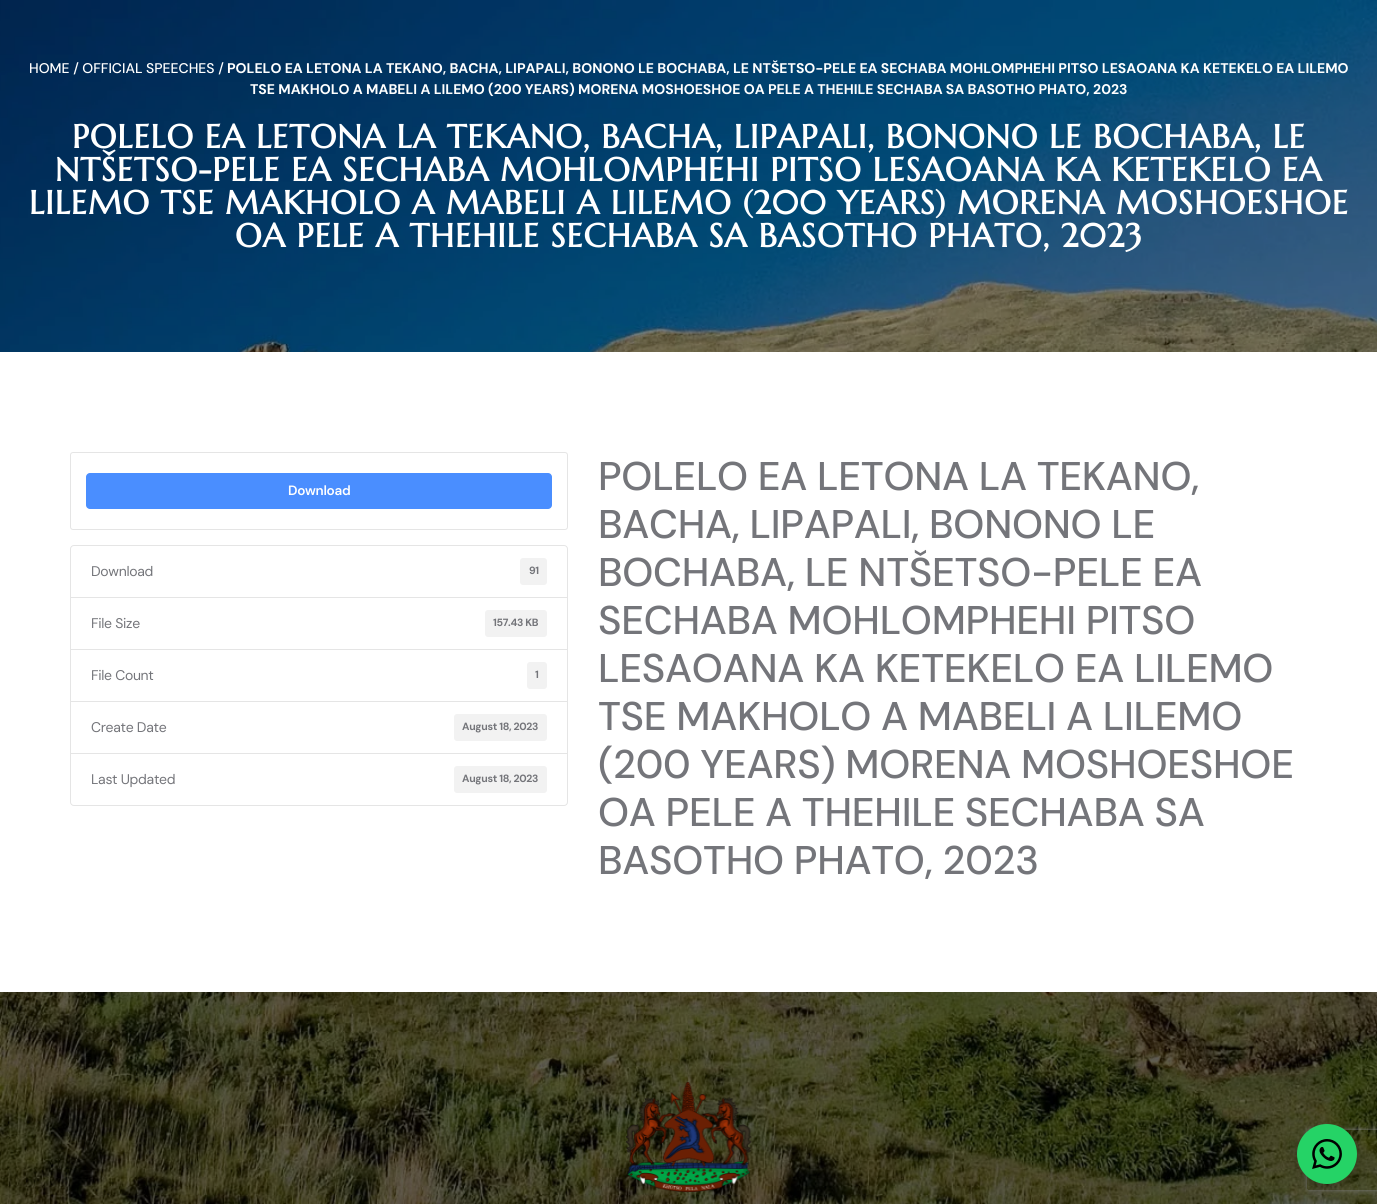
import math
import cairo

surface = cairo.ImageSurface(cairo.FORMAT_RGB24, 1377, 1204)
ctx = cairo.Context(surface)
options = cairo.FontOptions()
options.set_hint_metrics(cairo.HINT_METRICS_OFF)
options.set_hint_style(cairo.HINT_STYLE_NONE)
ctx.set_font_options(options)
ctx.set_miter_limit(4)


def set_color(code):
    ctx.set_source_rgb(*(v / 255 for v in bytes.fromhex(code[-6:])))


def draw_text(x, y, s, family, size, color, bold=False, italic=False):
    ctx.select_font_face(family, cairo.FONT_SLANT_ITALIC if italic else cairo.FONT_SLANT_NORMAL, cairo.FONT_WEIGHT_BOLD if bold else cairo.FONT_WEIGHT_NORMAL)
    ctx.set_font_size(size)
    set_color(color)
    ctx.move_to(x, y)
    ctx.show_text(s)


def draw_spaced(x, y, s, letter, word):
    ctx.move_to(x, y)
    for ch in s:
        ctx.show_text(ch)
        ctx.rel_move_to(letter + word * (ch == ' '), 0)


def rounded_rect(x, y, w, h, r):
    ctx.new_sub_path()
    for i, (u, v) in enumerate([(x + w - r, y + h - r), (x + r, y + h - r), (x + r, y + r), (x + w - r, y + r)]):
        ctx.arc(u, v, r, i * math.pi / 2, (i + 1) * math.pi / 2)
    ctx.close_path()


def draw_shadow(x, y, w, h, r, blur, alpha):
    ctx.push_group_with_content(cairo.CONTENT_ALPHA)
    ctx.set_operator(cairo.OPERATOR_SOURCE)
    for i in range(15, -16, -2):
        e = blur * i / 6
        if min(w, h) + 2 * e > 0:
            ctx.set_source_rgba(0, 0, 0, alpha * math.erfc((i - 1) / 8.5) / 2)
            rounded_rect(x - e, y - e, w + 2 * e, h + 2 * e, max(0, min(r + e + blur * .6, min(w, h) / 2 + e)))
            ctx.fill()
    ctx.mask(ctx.pop_group())


def draw_image(path, x, y, w, h):
    ctx.save()
    ctx.set_source_surface(cairo.ImageSurface.create_from_png(path), x, y)
    ctx.rectangle(x, y, w, h)
    ctx.fill()
    ctx.restore()


set_color("#ffffff")
ctx.paint()
draw_image("assets/img1.png", 0, 0, 1377, 352)
draw_text(29, 73, "HOME / OFFICIAL SPEECHES /", "DM Sans Medium", 14, "#ffffff")
draw_text(227, 73, "POLELO EA LETONA LA TEKANO, BACHA, LIPAPALI, BONONO LE BOCHABA, LE NTŠETSO-PELE EA SECHABA MOHLOMPHEHI PITSO LESAOANA KA KETEKELO EA LILEMO", "DM Sans", 14, "#ffffff", bold=True)
draw_text(250, 94, "TSE MAKHOLO A MABELI A LILEMO (200 YEARS) MORENA MOSHOESHOE OA PELE A THEHILE SECHABA SA BASOTHO PHATO, 2023", "DM Sans", 14, "#ffffff", bold=True)
ctx.select_font_face("Marcellus", cairo.FONT_SLANT_NORMAL, cairo.FONT_WEIGHT_BOLD)
ctx.set_font_size(33)
draw_spaced(72, 148, "POLELO EA LETONA LA TEKANO, BACHA, LIPAPALI, BONONO LE BOCHABA, LE", 0.9, 0)
draw_spaced(55, 181, "NTŠETSO-PELE EA SECHABA MOHLOMPHEHI PITSO LESAOANA KA KETEKELO EA", 0.9, 0)
draw_spaced(29, 214, "LILEMO TSE MAKHOLO A MABELI A LILEMO (200 YEARS) MORENA MOSHOESHOE", 0.9, 0)
draw_spaced(235, 247, "OA PELE A THEHILE SECHABA SA BASOTHO PHATO, 2023", 0.9, 0)
rounded_rect(70.5, 452.5, 497, 77, 2.5)
set_color("#e5e5e5")
ctx.set_line_width(1)
ctx.stroke()
set_color("#4a8eff")
rounded_rect(86, 473, 466, 36, 4)
ctx.fill()
ctx.select_font_face("DM Sans SemiBold")
ctx.set_font_size(13.5)
set_color("#ffffff")
draw_spaced(288, 495, "Download", -0.3, 0)
ctx.new_path()
ctx.move_to(74, 545.5)
ctx.line_to(564, 545.5)
ctx.curve_to(566, 545.5, 567.5, 547, 567.5, 549)
ctx.line_to(567.5, 597.5)
ctx.line_to(70.5, 597.5)
ctx.line_to(70.5, 549)
ctx.curve_to(70.5, 547, 72, 545.5, 74, 545.5)
ctx.close_path()
set_color("#e5e5e5")
ctx.stroke()
ctx.select_font_face("DM Sans")
ctx.set_font_size(14)
set_color("#74757a")
draw_spaced(91, 576, "Download", -0.3, 0)
set_color("#f2f2f2")
rounded_rect(520, 558, 27, 27, 3)
ctx.fill()
ctx.select_font_face("DM Sans", cairo.FONT_SLANT_NORMAL, cairo.FONT_WEIGHT_BOLD)
ctx.set_font_size(10.5)
set_color("#74757a")
draw_spaced(529, 574, "91", -0.3, 0)
ctx.rectangle(70.5, 597.5, 497, 52)
set_color("#e5e5e5")
ctx.stroke()
ctx.select_font_face("DM Sans")
ctx.set_font_size(14)
set_color("#74757a")
draw_spaced(91, 628, "File Size", -0.3, 0)
set_color("#f2f2f2")
rounded_rect(485, 610, 62, 27, 3)
ctx.fill()
ctx.select_font_face("DM Sans", cairo.FONT_SLANT_NORMAL, cairo.FONT_WEIGHT_BOLD)
ctx.set_font_size(10.5)
set_color("#74757a")
draw_spaced(493, 626, "157.43 KB", -0.3, 0)
ctx.rectangle(70.5, 649.5, 497, 52)
set_color("#e5e5e5")
ctx.stroke()
ctx.select_font_face("DM Sans")
ctx.set_font_size(14)
set_color("#74757a")
draw_spaced(91, 680, "File Count", -0.3, 0)
set_color("#f2f2f2")
rounded_rect(527, 662, 20, 27, 3)
ctx.fill()
ctx.select_font_face("DM Sans", cairo.FONT_SLANT_NORMAL, cairo.FONT_WEIGHT_BOLD)
ctx.set_font_size(10.5)
set_color("#74757a")
draw_spaced(535, 678, "1", -0.3, 0)
ctx.rectangle(70.5, 701.5, 497, 52)
set_color("#e5e5e5")
ctx.stroke()
ctx.select_font_face("DM Sans")
ctx.set_font_size(14)
set_color("#74757a")
draw_spaced(91, 732, "Create Date", -0.3, 0)
set_color("#f2f2f2")
rounded_rect(454, 714, 93, 27, 3)
ctx.fill()
ctx.select_font_face("DM Sans", cairo.FONT_SLANT_NORMAL, cairo.FONT_WEIGHT_BOLD)
ctx.set_font_size(10.5)
set_color("#74757a")
draw_spaced(462, 730, "August 18, 2023", -0.3, 0)
set_color("#ffffff")
ctx.new_path()
ctx.move_to(70.5, 753.5)
ctx.line_to(567.5, 753.5)
ctx.line_to(567.5, 802)
ctx.curve_to(567.5, 804, 566, 805.5, 564, 805.5)
ctx.line_to(74, 805.5)
ctx.curve_to(72, 805.5, 70.5, 804, 70.5, 802)
ctx.close_path()
ctx.fill_preserve()
set_color("#e5e5e5")
ctx.stroke()
ctx.select_font_face("DM Sans")
ctx.set_font_size(14)
set_color("#74757a")
draw_spaced(91, 784, "Last Updated", -0.3, 0)
set_color("#f2f2f2")
rounded_rect(454, 766, 93, 27, 3)
ctx.fill()
ctx.select_font_face("DM Sans", cairo.FONT_SLANT_NORMAL, cairo.FONT_WEIGHT_BOLD)
ctx.set_font_size(10.5)
set_color("#74757a")
draw_spaced(462, 782, "August 18, 2023", -0.3, 0)
ctx.select_font_face("DM Sans Medium")
ctx.set_font_size(40)
draw_spaced(598, 490, "POLELO EA LETONA LA TEKANO,", -0.3, 0)
draw_spaced(598, 538, "BACHA, LIPAPALI, BONONO LE", -0.3, 0)
draw_spaced(598, 586, "BOCHABA, LE NTŠETSO-PELE EA", -0.3, 0)
draw_spaced(598, 634, "SECHABA MOHLOMPHEHI PITSO", -0.3, 0)
draw_spaced(598, 682, "LESAOANA KA KETEKELO EA LILEMO", -0.3, 0)
draw_spaced(598, 730, "TSE MAKHOLO A MABELI A LILEMO", -0.3, 0)
draw_spaced(598, 778, "(200 YEARS) MORENA MOSHOESHOE", -0.3, 0)
draw_spaced(598, 826, "OA PELE A THEHILE SECHABA SA", -0.3, 0)
draw_spaced(598, 874, "BASOTHO PHATO, 2023", -0.3, 0)
draw_image("assets/img2.png", 0, 992, 1377, 212)
draw_image("assets/img3.png", 626, 1082, 126, 110)
ctx.save()
ctx.set_fill_rule(cairo.FILL_RULE_EVEN_ODD)
ctx.new_path()
ctx.move_to(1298, 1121)
ctx.line_to(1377, 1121)
ctx.line_to(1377, 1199)
ctx.line_to(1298, 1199)
ctx.close_path()
ctx.move_to(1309, 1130)
ctx.line_to(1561, 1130)
ctx.curve_to(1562, 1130, 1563, 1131, 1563, 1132)
ctx.line_to(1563, 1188)
ctx.curve_to(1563, 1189, 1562, 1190, 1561, 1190)
ctx.line_to(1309, 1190)
ctx.curve_to(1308, 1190, 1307, 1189, 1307, 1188)
ctx.line_to(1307, 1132)
ctx.curve_to(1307, 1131, 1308, 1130, 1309, 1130)
ctx.close_path()
ctx.clip()
set_color("#808080")
draw_shadow(1307, 1130, 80, 60, 2, 2.5, 1)
ctx.restore()
set_color("#000000")
draw_shadow(1297, 1128, 60, 60, 30, 6, 0.2)
set_color("#25d366")
ctx.arc(1327, 1154, 30, 0, 2 * math.pi)
ctx.fill()
draw_image("assets/img4.png", 1312, 1139, 30, 30)
surface.write_to_png("output.png")
